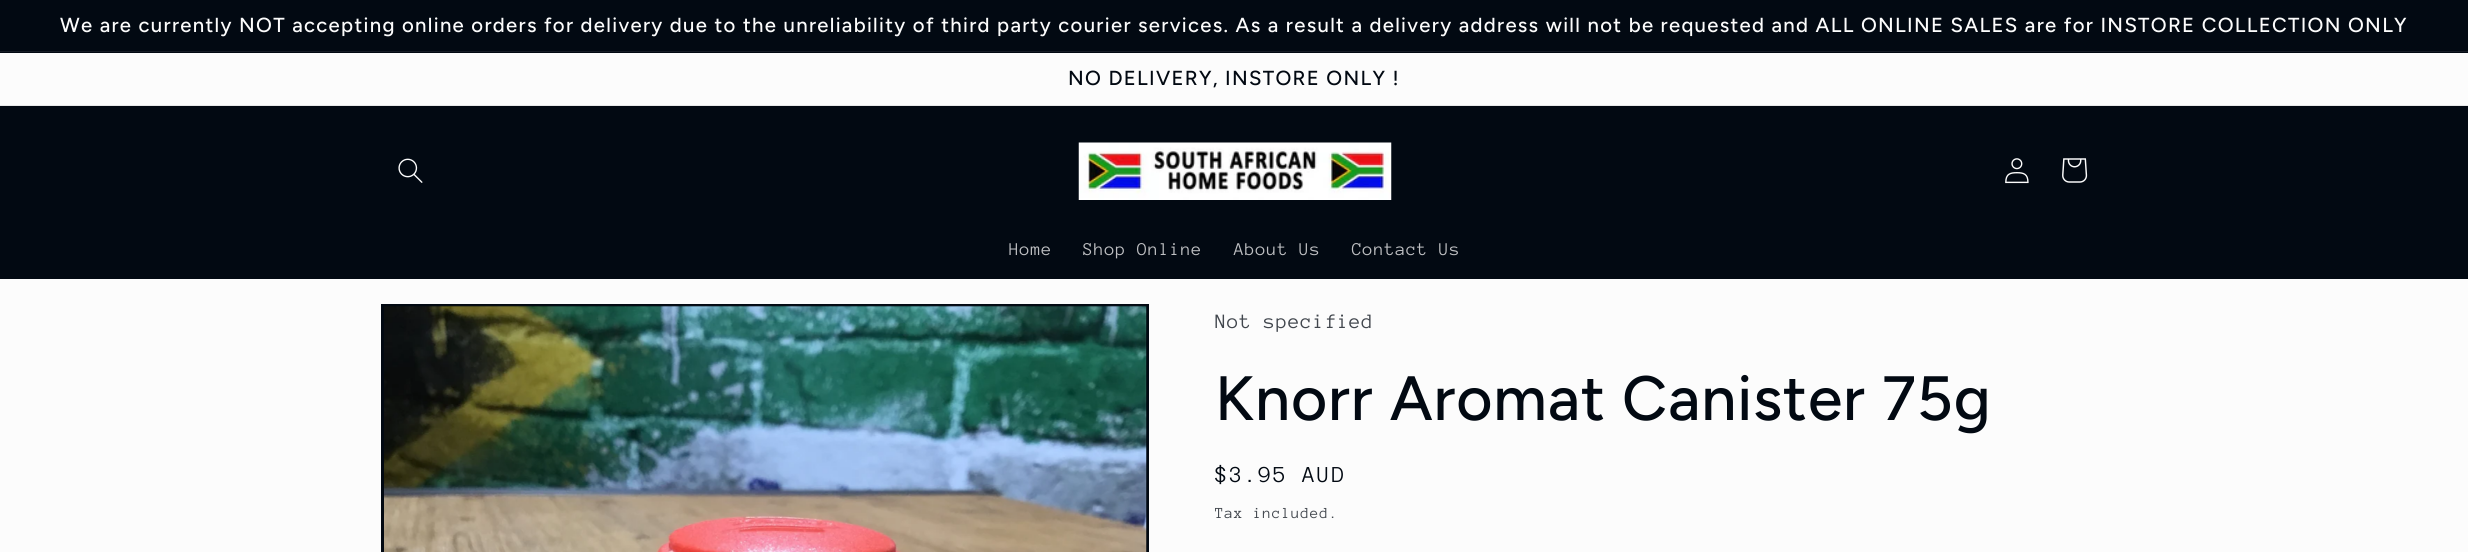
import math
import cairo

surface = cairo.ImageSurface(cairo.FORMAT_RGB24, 2468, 552)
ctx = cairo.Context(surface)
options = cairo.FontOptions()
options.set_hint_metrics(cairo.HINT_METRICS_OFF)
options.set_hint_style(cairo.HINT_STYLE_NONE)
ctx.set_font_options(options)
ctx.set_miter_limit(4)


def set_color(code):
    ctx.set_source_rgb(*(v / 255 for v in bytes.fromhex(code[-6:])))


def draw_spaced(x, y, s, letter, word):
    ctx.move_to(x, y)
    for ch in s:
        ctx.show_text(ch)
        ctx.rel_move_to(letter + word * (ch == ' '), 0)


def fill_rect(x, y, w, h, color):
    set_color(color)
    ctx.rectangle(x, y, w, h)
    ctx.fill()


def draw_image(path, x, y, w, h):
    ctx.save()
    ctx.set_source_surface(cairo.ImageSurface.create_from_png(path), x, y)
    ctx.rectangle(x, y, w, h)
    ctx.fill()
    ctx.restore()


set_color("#fcfcfc")
ctx.paint()
fill_rect(0, 0, 2468, 53, "#020912")
fill_rect(0, 51, 2468, 1, "#161c25")
ctx.select_font_face("Figtree Medium")
ctx.set_font_size(20.31)
set_color("#fcfcfc")
draw_spaced(60, 32, "We are currently NOT accepting online orders for delivery due to the unreliability of third party courier services. As a result a delivery address will not be requested and ALL ONLINE SALES are for INSTORE COLLECTION ONLY", 1.31, 0)
fill_rect(0, 105, 2468, 1, "#e8e9e9")
set_color("#020912")
draw_spaced(1068, 85, "NO DELIVERY, INSTORE ONLY !", 1.31, 0)
fill_rect(0, 106, 2468, 173, "#020912")
draw_image("assets/img1.png", 398, 158, 25, 25)
draw_image("assets/img2.png", 1078, 142, 314, 58)
draw_image("assets/img3.png", 2005, 158, 24, 26)
draw_image("assets/img4.png", 2062, 158, 26, 25)
ctx.select_font_face("Anonymous Pro")
ctx.set_font_size(18.5)
set_color("#bebfc2")
draw_spaced(1009, 255, "Home", 0.75, 0)
draw_spaced(1083, 255, "Shop Online", 0.75, 0)
draw_spaced(1234, 255, "About Us", 0.75, 0)
draw_spaced(1352, 255, "Contact Us", 0.75, 0)
ctx.rectangle(382.5, 305.5, 765, 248)
set_color("#020912")
ctx.set_line_width(3)
ctx.stroke()
draw_image("assets/img5.png", 384, 305, 763, 247)
ctx.set_font_size(21)
set_color("#41464d")
draw_spaced(1215, 328, "Not specified", 0.75, 0)
ctx.select_font_face("Figtree Medium")
ctx.set_font_size(62.5)
set_color("#020912")
draw_spaced(1215, 420, "Knorr Aromat Canister 75g", 0.9, 0)
ctx.select_font_face("Anonymous Pro")
ctx.set_font_size(23.5)
draw_spaced(1215, 482, "$3.95 AUD", 1.75, 0)
ctx.set_font_size(15.75)
set_color("#41464d")
draw_spaced(1215, 518, "Tax included.", 0.9, 0)
surface.write_to_png("output.png")
